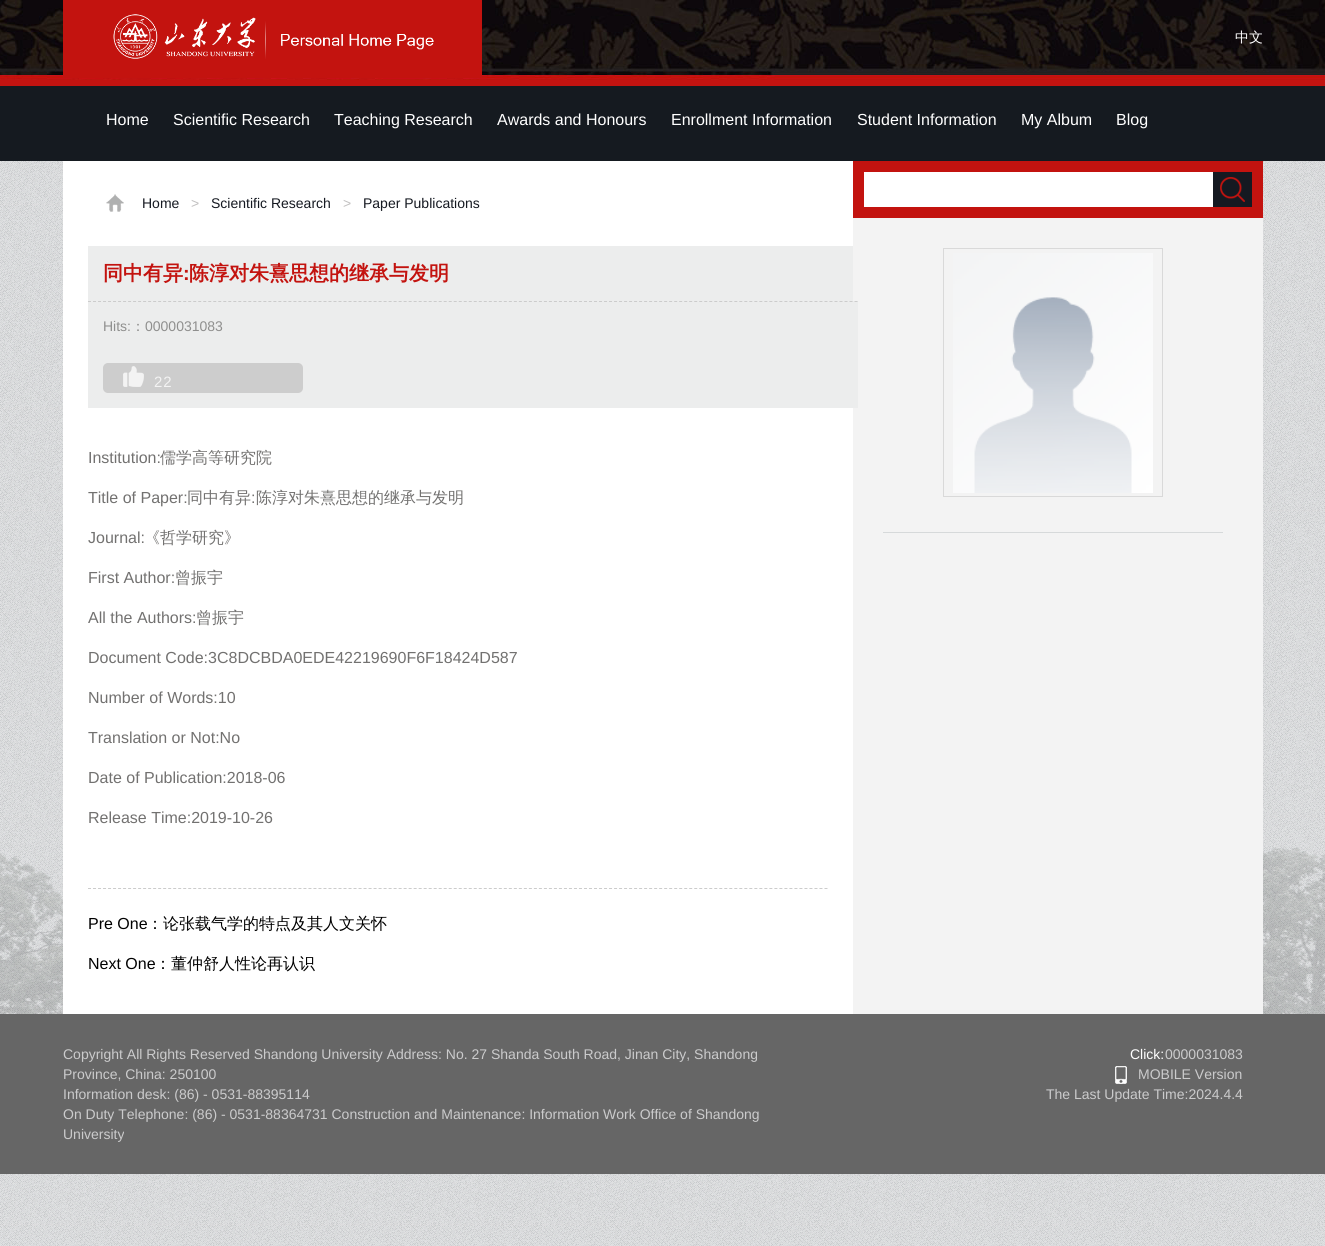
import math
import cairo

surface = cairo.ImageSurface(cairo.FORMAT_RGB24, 1325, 1246)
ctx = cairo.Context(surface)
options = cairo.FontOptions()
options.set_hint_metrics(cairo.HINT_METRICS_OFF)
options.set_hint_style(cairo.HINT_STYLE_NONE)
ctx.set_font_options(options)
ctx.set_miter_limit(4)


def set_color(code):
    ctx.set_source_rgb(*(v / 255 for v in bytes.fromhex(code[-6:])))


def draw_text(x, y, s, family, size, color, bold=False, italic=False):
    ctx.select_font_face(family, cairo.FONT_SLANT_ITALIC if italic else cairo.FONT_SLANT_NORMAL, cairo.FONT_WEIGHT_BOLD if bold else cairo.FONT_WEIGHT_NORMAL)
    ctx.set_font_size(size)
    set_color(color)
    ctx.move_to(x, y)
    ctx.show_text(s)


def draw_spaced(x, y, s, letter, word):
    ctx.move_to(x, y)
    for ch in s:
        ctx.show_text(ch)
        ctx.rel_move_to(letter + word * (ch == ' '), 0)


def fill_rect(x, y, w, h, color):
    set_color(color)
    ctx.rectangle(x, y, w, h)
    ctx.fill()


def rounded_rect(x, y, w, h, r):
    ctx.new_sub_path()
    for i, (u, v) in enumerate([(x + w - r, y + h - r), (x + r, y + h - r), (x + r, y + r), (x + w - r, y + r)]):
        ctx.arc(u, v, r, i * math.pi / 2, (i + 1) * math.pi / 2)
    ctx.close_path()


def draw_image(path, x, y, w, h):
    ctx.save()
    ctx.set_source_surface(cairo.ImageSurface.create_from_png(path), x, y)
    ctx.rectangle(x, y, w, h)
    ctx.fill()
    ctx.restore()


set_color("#ffffff")
ctx.paint()
draw_image("assets/img1.png", 0, 161, 1325, 1085)
draw_image("assets/img2.png", 0, 80, 1325, 6)
draw_image("assets/img3.png", 0, 0, 1325, 80)
fill_rect(63, 0, 419, 78, "#c3130f")
draw_image("assets/img4.png", 113, 14, 321, 45)
draw_text(1235, 42, "中文", "WenQuanYi Zen Hei Medium", 14, "#ffffff")
fill_rect(0, 86, 1325, 75, "#151a20")
draw_text(106, 125, "Home", "Liberation Sans", 16, "#ffffff")
draw_text(173, 125, "Scientific Research", "Liberation Sans", 16, "#ffffff")
draw_text(334, 125, "Teaching Research", "Liberation Sans", 16, "#ffffff")
draw_text(497, 125, "Awards and Honours", "Liberation Sans", 16, "#ffffff")
draw_text(671, 125, "Enrollment Information", "Liberation Sans", 16, "#ffffff")
draw_text(857, 125, "Student Information", "Liberation Sans", 16, "#ffffff")
draw_text(1021, 125, "My Album", "Liberation Sans", 16, "#ffffff")
draw_text(1116, 125, "Blog", "Liberation Sans", 16, "#ffffff")
draw_image("assets/img5.png", 0, 847, 1325, 167)
fill_rect(63, 161, 790, 853, "#ffffff")
draw_image("assets/img6.png", 106, 194, 18, 18)
draw_text(142, 208, "Home", "Liberation Sans", 14, "#151921")
draw_text(191, 208, ">", "Liberation Sans", 14, "#c1c0c0")
draw_text(211, 208, "Scientific Research", "Liberation Sans", 14, "#151921")
draw_text(343, 208, ">", "Liberation Sans", 14, "#c1c0c0")
draw_text(363, 208, "Paper Publications", "Liberation Sans", 14, "#151921")
fill_rect(88, 246, 765, 55, "#eceded")
draw_text(103, 280, "同中有异", "WenQuanYi Zen Hei", 20, "#c3130f", bold=True)
draw_text(183, 280, ":", "Liberation Sans", 20, "#c3130f", bold=True)
draw_text(189, 280, "陈淳对朱熹思想的继承与发明", "WenQuanYi Zen Hei", 20, "#c3130f", bold=True)
fill_rect(853, 218, 410, 796, "#f3f3f3")
fill_rect(88, 301, 770, 107, "#eceded")
ctx.new_path()
ctx.move_to(88, 301.5)
ctx.line_to(858, 301.5)
set_color("#cccccc")
ctx.set_line_width(1)
ctx.set_dash([3, 2.01])
ctx.stroke()
draw_text(103, 331, "Hits:", "Liberation Sans", 14, "#8f8f8e")
draw_text(131, 331, "：", "WenQuanYi Zen Hei Medium", 14, "#8f8f8e")
draw_text(145, 331, "0000031083", "Liberation Sans", 14, "#8f8f8e")
set_color("#cdcdcd")
rounded_rect(103, 363, 200, 30, 5)
ctx.fill()
draw_image("assets/img7.png", 123, 366, 21, 21)
ctx.set_font_size(15)
set_color("#f3f3f3")
draw_spaced(154, 387, "22", 1, 0)
draw_text(88, 463, "Institution:", "Liberation Sans", 16, "#727170")
draw_text(160, 463, "儒学高等研究院", "WenQuanYi Zen Hei Medium", 16, "#727170")
draw_text(88, 503, "Title of Paper:", "Liberation Sans", 16, "#727170")
draw_text(187, 503, "同中有异", "WenQuanYi Zen Hei Medium", 16, "#727170")
draw_text(251, 503, ":", "Liberation Sans", 16, "#727170")
draw_text(256, 503, "陈淳对朱熹思想的继承与发明", "WenQuanYi Zen Hei Medium", 16, "#727170")
draw_text(88, 543, "Journal:", "Liberation Sans", 16, "#727170")
draw_text(144, 543, "《哲学研究》", "WenQuanYi Zen Hei Medium", 16, "#727170")
draw_text(88, 583, "First Author:", "Liberation Sans", 16, "#727170")
draw_text(175, 583, "曾振宇", "WenQuanYi Zen Hei Medium", 16, "#727170")
draw_text(88, 623, "All the Authors:", "Liberation Sans", 16, "#727170")
draw_text(196, 623, "曾振宇", "WenQuanYi Zen Hei Medium", 16, "#727170")
draw_text(88, 663, "Document Code:3C8DCBDA0EDE42219690F6F18424D587", "Liberation Sans", 16, "#727170")
draw_text(88, 703, "Number of Words:10", "Liberation Sans", 16, "#727170")
draw_text(88, 743, "Translation or Not:No", "Liberation Sans", 16, "#727170")
draw_text(88, 783, "Date of Publication:2018-06", "Liberation Sans", 16, "#727170")
draw_text(88, 823, "Release Time:2019-10-26", "Liberation Sans", 16, "#727170")
ctx.new_path()
ctx.move_to(88, 888.5)
ctx.line_to(828, 888.5)
set_color("#cccccc")
ctx.stroke()
draw_text(88, 929, "Pre One", "Liberation Sans", 16, "#000000")
draw_text(147, 929, "：论张载气学的特点及其人文关怀", "WenQuanYi Zen Hei Medium", 16, "#000000")
draw_text(88, 969, "Next One", "Liberation Sans", 16, "#000000")
draw_text(155, 969, "：董仲舒人性论再认识", "WenQuanYi Zen Hei Medium", 16, "#000000")
fill_rect(853, 161, 410, 57, "#c3130f")
fill_rect(864, 172, 349, 35, "#ffffff")
draw_image("assets/img8.png", 1213, 172, 39, 35)
ctx.rectangle(943.5, 248.5, 219, 248)
set_color("#d9d9d9")
ctx.set_dash([])
ctx.stroke()
draw_image("assets/img9.png", 953, 253, 200, 240)
fill_rect(883, 532, 340, 1, "#d6d9da")
fill_rect(0, 1014, 1325, 160, "#666666")
draw_text(63, 1059, "Copyright All Rights Reserved Shandong University Address: No. 27 Shanda South Road, Jinan City, Shandong", "Liberation Sans", 14, "#cbcbcc")
draw_text(63, 1079, "Province, China: 250100", "Liberation Sans", 14, "#cbcbcc")
draw_text(63, 1099, "Information desk: (86) - 0531-88395114", "Liberation Sans", 14, "#cbcbcc")
draw_text(63, 1119, "On Duty Telephone: (86) - 0531-88364731 Construction and Maintenance: Information Work Office of Shandong", "Liberation Sans", 14, "#cbcbcc")
draw_text(63, 1139, "University", "Liberation Sans", 14, "#cbcbcc")
draw_text(1130, 1059, "Click:", "Liberation Sans", 14, "#ffffff")
draw_text(1165, 1059, "0000031083", "Liberation Sans", 14, "#cbcbcc")
draw_image("assets/img10.png", 1115, 1066, 12, 18)
draw_text(1138, 1079, "MOBILE Version", "Liberation Sans", 14, "#cbcbcc")
draw_text(1046, 1099, "The Last Update Time:2024.4.4", "Liberation Sans", 14, "#cbcbcc")
surface.write_to_png("output.png")
